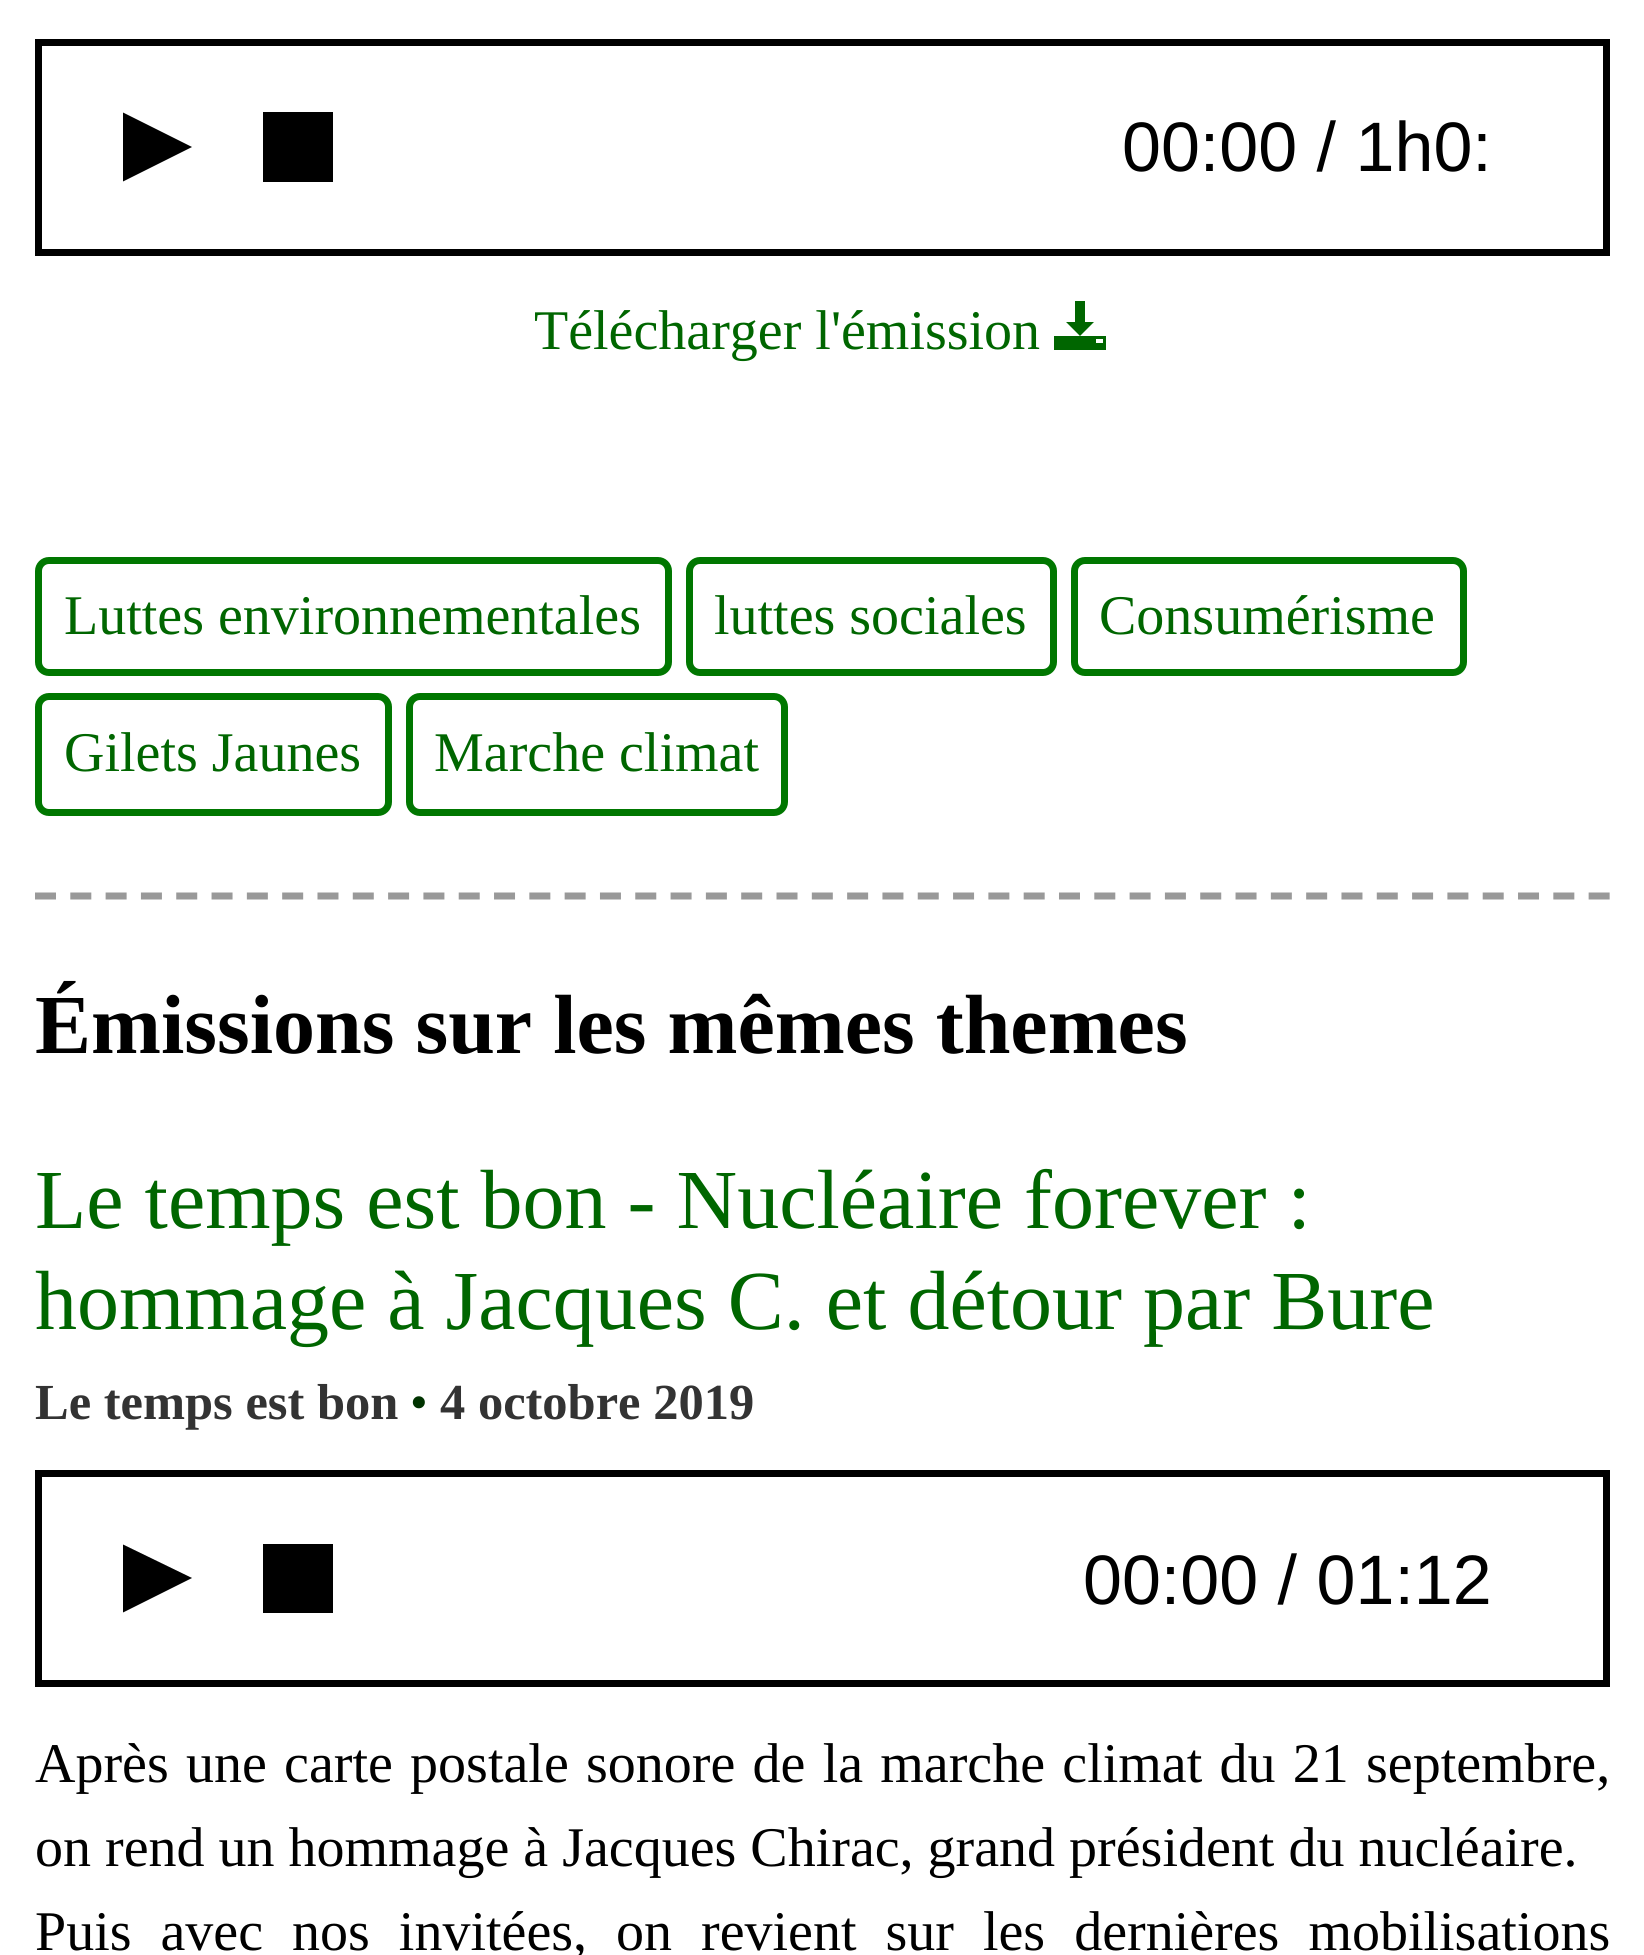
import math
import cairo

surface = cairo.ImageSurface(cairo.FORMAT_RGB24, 1644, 1955)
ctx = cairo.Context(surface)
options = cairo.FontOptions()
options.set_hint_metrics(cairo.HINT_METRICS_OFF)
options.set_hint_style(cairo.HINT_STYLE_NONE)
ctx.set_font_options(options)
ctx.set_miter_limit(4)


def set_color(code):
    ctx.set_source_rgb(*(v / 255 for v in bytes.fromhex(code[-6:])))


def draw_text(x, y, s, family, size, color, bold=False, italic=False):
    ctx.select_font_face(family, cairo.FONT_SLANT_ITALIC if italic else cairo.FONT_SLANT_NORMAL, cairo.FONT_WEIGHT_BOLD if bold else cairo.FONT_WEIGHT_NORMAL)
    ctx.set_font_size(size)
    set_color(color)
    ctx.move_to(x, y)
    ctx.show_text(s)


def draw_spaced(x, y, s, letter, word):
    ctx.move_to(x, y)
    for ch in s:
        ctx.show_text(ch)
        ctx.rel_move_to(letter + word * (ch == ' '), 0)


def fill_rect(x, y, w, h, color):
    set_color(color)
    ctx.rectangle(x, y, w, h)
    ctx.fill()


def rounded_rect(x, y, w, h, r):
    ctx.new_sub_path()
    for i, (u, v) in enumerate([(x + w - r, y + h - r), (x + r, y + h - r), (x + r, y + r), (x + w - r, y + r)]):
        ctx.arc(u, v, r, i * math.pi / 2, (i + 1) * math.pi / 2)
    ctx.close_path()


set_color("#ffffff")
ctx.paint()
ctx.rectangle(38.5, 42.5, 1568, 210)
set_color("#000000")
ctx.set_line_width(7)
ctx.stroke()
ctx.save()
ctx.rectangle(123, 112, 70, 70)
ctx.clip()
ctx.new_path()
ctx.move_to(122, 182)
ctx.line_to(122, 112)
ctx.line_to(192, 147)
ctx.close_path()
ctx.fill()
ctx.restore()
fill_rect(263, 112, 70, 70, "#000000")
draw_text(1122, 171, "00:00 / 1h0:", "Liberation Sans", 70, "#000000")
draw_text(534, 349, "Télécharger l'émission", "Liberation Serif", 56, "#006600")
ctx.new_path()
ctx.move_to(1094, 322)
ctx.line_to(1080, 336)
ctx.line_to(1066, 322)
ctx.line_to(1075, 322)
ctx.line_to(1075, 301)
ctx.line_to(1085, 301)
ctx.line_to(1085, 322)
ctx.close_path()
ctx.move_to(1080, 336)
ctx.line_to(1054, 336)
ctx.line_to(1054, 350)
ctx.line_to(1106, 350)
ctx.line_to(1106, 336)
ctx.close_path()
ctx.move_to(1103, 343)
ctx.line_to(1096, 343)
ctx.line_to(1096, 339)
ctx.line_to(1103, 339)
ctx.close_path()
ctx.fill()
rounded_rect(38.5, 560.5, 630, 112, 10.5)
set_color("#007700")
ctx.stroke()
draw_text(64, 634, "Luttes environnementales", "Liberation Serif", 56, "#006600")
rounded_rect(689.5, 560.5, 364, 112, 10.5)
set_color("#007700")
ctx.stroke()
draw_text(714, 634, "luttes sociales", "Liberation Serif", 56, "#006600")
rounded_rect(1074.5, 560.5, 389, 112, 10.5)
set_color("#007700")
ctx.stroke()
draw_text(1099, 634, "Consumérisme", "Liberation Serif", 56, "#006600")
rounded_rect(38.5, 696.5, 350, 116, 10.5)
set_color("#007700")
ctx.stroke()
draw_text(64, 771, "Gilets Jaunes", "Liberation Serif", 56, "#006600")
rounded_rect(409.5, 696.5, 375, 116, 10.5)
set_color("#007700")
ctx.stroke()
draw_text(434, 771, "Marche climat", "Liberation Serif", 56, "#006600")
ctx.new_path()
ctx.move_to(35, 896)
ctx.line_to(1610, 896)
set_color("#999999")
ctx.set_dash([21, 14.31])
ctx.stroke()
draw_text(35, 1053, "Émissions sur les mêmes themes", "Liberation Serif", 84, "#000000", bold=True)
draw_text(35, 1228, "Le temps est bon - Nucléaire forever :", "Liberation Serif", 84, "#006600")
draw_text(35, 1329, "hommage à Jacques C. et détour par Bure", "Liberation Serif", 84, "#006600")
draw_text(35, 1419, "Le temps est bon", "Liberation Serif", 50.5, "#333333", bold=True)
draw_text(410, 1419, "•", "Liberation Serif", 50.5, "#003300")
draw_text(440, 1419, "4 octobre 2019", "Liberation Serif", 50.5, "#333333", bold=True)
ctx.rectangle(38.5, 1473.5, 1568, 210)
set_color("#000000")
ctx.set_dash([])
ctx.stroke()
ctx.save()
ctx.rectangle(123, 1544, 70, 70)
ctx.clip()
ctx.new_path()
ctx.move_to(122, 1613)
ctx.line_to(122, 1544)
ctx.line_to(192, 1578)
ctx.close_path()
ctx.fill()
ctx.restore()
fill_rect(263, 1544, 70, 69, "#000000")
draw_text(1083, 1604, "00:00 / 01:12", "Liberation Sans", 70, "#000000")
ctx.select_font_face("Liberation Serif")
ctx.set_font_size(56)
draw_spaced(35, 1782, "Après une carte postale sonore de la marche climat du 21 septembre,", 0, 3.25)
draw_text(35, 1866, "on rend un hommage à Jacques Chirac, grand président du nucléaire.", "Liberation Serif", 56, "#000000")
draw_spaced(35, 1950, "Puis avec nos invitées, on revient sur les dernières mobilisations", 0, 15)
surface.write_to_png("output.png")
